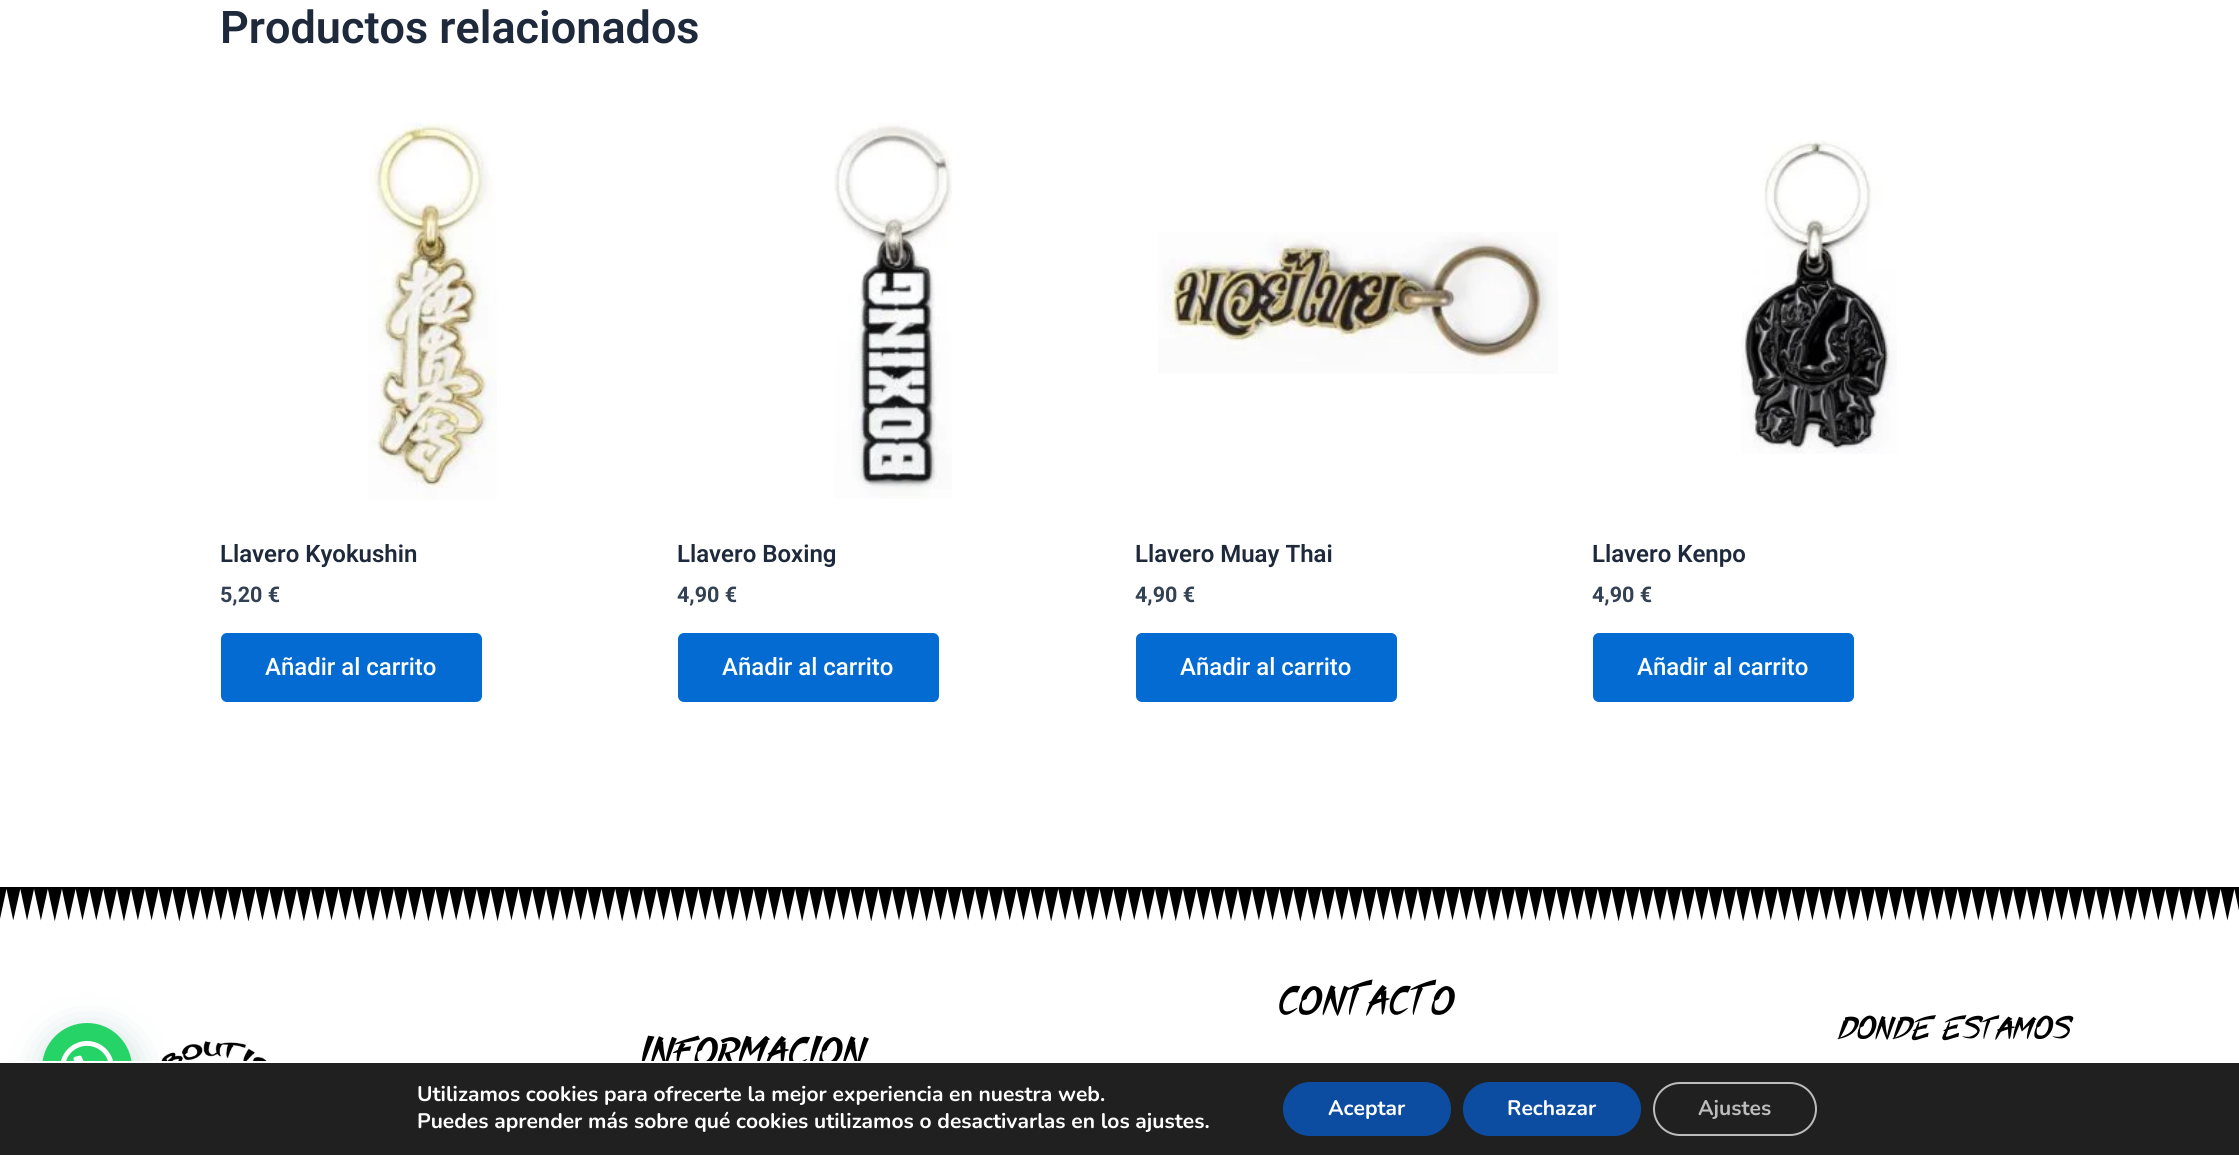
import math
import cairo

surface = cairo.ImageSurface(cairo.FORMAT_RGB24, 2239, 1155)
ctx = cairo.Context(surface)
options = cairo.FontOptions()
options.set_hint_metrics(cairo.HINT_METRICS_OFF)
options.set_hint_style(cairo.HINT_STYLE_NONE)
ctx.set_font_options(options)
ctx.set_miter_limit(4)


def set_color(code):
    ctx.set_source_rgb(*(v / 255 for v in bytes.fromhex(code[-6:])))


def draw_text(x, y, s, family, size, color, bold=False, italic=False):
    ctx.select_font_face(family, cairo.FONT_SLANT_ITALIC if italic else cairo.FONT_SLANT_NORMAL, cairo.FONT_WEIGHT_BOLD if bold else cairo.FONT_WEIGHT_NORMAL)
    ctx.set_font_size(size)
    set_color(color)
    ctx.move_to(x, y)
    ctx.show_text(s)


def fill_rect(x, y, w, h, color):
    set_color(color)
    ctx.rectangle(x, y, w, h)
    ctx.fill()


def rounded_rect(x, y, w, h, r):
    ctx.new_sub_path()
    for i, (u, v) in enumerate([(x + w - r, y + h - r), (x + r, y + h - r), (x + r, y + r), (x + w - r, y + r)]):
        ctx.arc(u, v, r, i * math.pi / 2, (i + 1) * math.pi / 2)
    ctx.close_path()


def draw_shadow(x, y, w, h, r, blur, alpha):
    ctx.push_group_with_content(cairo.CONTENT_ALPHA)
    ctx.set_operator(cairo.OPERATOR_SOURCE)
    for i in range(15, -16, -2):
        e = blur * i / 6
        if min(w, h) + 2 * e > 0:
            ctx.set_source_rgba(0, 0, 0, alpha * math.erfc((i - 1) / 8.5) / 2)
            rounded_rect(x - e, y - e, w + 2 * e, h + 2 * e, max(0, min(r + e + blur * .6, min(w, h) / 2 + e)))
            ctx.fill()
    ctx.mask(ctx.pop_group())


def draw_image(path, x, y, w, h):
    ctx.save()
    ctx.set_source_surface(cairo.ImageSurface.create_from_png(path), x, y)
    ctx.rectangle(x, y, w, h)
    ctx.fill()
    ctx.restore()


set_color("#ffffff")
ctx.paint()
draw_image("assets/img7.png", 125, 1041, 178, 20)
set_color("#075e54")
draw_shadow(44, 1032, 90, 90, 45, 18, 0.24)
set_color("#25d366")
ctx.arc(87, 1068, 45, 0, 2 * math.pi)
ctx.fill()
draw_image("assets/img1.png", 61, 1041, 52, 20)
draw_text(220, 43, "Productos relacionados", "Roboto SemiBold", 45, "#1e293b")
draw_image("assets/img2.png", 368, 122, 129, 378)
draw_text(220, 562, "Llavero Kyokushin", "Roboto SemiBold", 24, "#1e293b")
draw_text(220, 602, "5,20 €", "Roboto", 21.5, "#334155", bold=True)
set_color("#046bd2")
rounded_rect(221, 633, 261, 69, 6)
ctx.fill()
draw_text(265, 675, "Añadir al carrito", "Roboto Medium", 24, "#ffffff")
draw_image("assets/img3.png", 834, 123, 118, 376)
draw_text(677, 562, "Llavero Boxing", "Roboto SemiBold", 24, "#1e293b")
draw_text(677, 602, "4,90 €", "Roboto", 21.5, "#334155", bold=True)
set_color("#046bd2")
rounded_rect(678, 633, 261, 69, 6)
ctx.fill()
draw_text(722, 675, "Añadir al carrito", "Roboto Medium", 24, "#ffffff")
draw_image("assets/img4.png", 1158, 232, 400, 142)
draw_text(1135, 562, "Llavero Muay Thai", "Roboto SemiBold", 24, "#1e293b")
draw_text(1135, 602, "4,90 €", "Roboto", 21.5, "#334155", bold=True)
set_color("#046bd2")
rounded_rect(1136, 633, 261, 69, 6)
ctx.fill()
draw_text(1180, 675, "Añadir al carrito", "Roboto Medium", 24, "#ffffff")
draw_image("assets/img5.png", 1741, 140, 156, 314)
draw_text(1592, 562, "Llavero Kenpo", "Roboto SemiBold", 24, "#1e293b")
draw_text(1592, 602, "4,90 €", "Roboto", 21.5, "#334155", bold=True)
set_color("#046bd2")
rounded_rect(1593, 633, 261, 69, 6)
ctx.fill()
draw_text(1637, 675, "Añadir al carrito", "Roboto Medium", 24, "#ffffff")
draw_image("assets/img6.png", 0, 887, 2239, 34)
draw_text(1277, 1013, "CONTACTO", "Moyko", 40.5, "#000000", italic=True)
draw_text(1838, 1037, "donde", "Moyko", 40.5, "#000000", italic=True)
draw_text(1942, 1037, "estamos", "Moyko", 40.5, "#000000", italic=True)
draw_text(639, 1064, "INFORMACION", "Moyko", 40.5, "#000000", italic=True)
fill_rect(0, 1063, 2239, 92, "#202020")
fill_rect(18, 1061, 842, 2, "#ffffff")
draw_text(417, 1101, "Utilizamos cookies para ofrecerte la mejor experiencia en nuestra web.", "Nunito", 21, "#ffffff", bold=True)
draw_text(417, 1128, "Puedes aprender más sobre qué cookies utilizamos o desactivarlas en los ajustes.", "Nunito", 21, "#ffffff", bold=True)
set_color("#0c4da2")
rounded_rect(1283, 1082, 168, 54, 27)
ctx.fill()
draw_text(1328, 1115, "Aceptar", "Nunito", 21, "#ffffff", bold=True)
set_color("#0c4da2")
rounded_rect(1463, 1082, 178, 54, 27)
ctx.fill()
draw_text(1507, 1115, "Rechazar", "Nunito", 21, "#ffffff", bold=True)
rounded_rect(1654, 1083, 162, 52, 26)
set_color("#bcbcbc")
ctx.stroke()
draw_text(1698, 1115, "Ajustes", "Nunito", 21, "#bcbcbc", bold=True)
surface.write_to_png("output.png")
